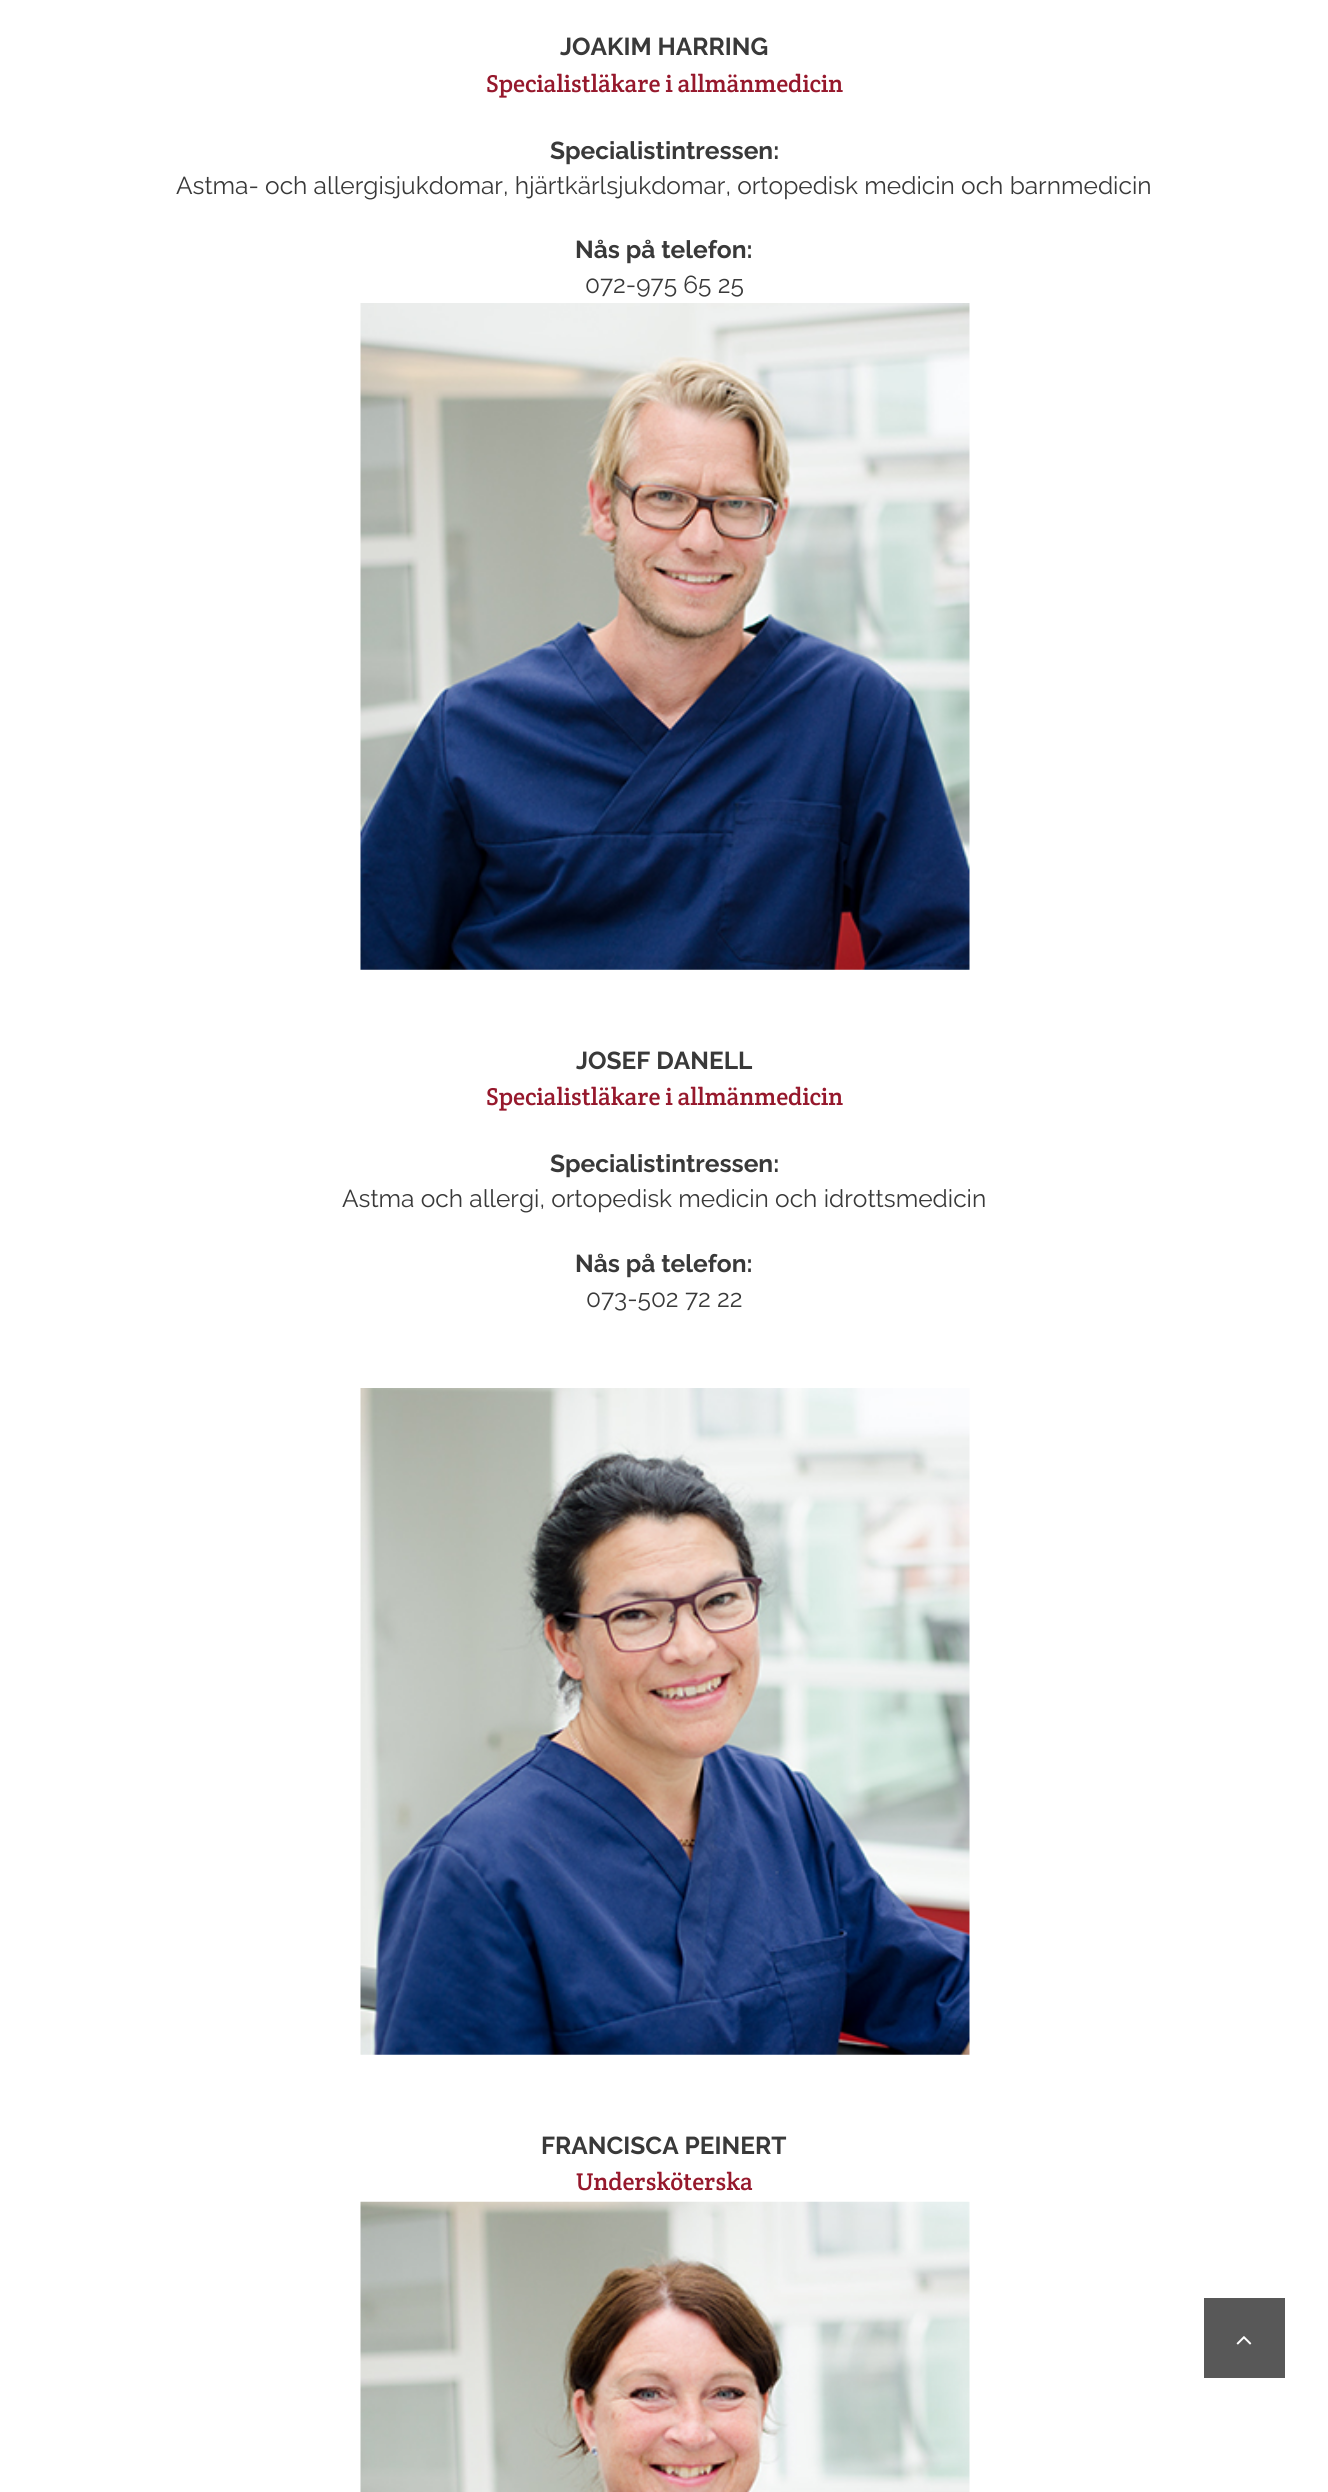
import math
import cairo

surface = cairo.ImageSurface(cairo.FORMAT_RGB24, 1328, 2492)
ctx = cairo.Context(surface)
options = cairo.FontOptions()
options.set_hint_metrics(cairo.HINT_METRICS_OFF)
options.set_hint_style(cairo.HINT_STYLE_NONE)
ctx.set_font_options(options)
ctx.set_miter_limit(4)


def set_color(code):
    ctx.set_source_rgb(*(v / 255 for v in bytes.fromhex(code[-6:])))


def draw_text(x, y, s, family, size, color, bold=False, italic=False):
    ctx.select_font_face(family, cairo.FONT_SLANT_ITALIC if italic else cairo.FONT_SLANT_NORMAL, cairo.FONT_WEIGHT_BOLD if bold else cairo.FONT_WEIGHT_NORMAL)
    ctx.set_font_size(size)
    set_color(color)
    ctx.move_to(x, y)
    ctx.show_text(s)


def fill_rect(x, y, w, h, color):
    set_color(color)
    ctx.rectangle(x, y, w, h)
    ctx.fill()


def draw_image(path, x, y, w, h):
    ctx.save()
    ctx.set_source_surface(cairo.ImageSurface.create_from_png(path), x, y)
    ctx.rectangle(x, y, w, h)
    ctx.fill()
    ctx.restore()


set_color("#ffffff")
ctx.paint()
draw_text(560, 55, "JOAKIM HARRING", "Raleway", 24.5, "#393939", bold=True)
draw_text(486, 92, "Specialistläkare i allmänmedicin", "Crete Round", 24.5, "#96182c")
draw_text(550, 159, "Specialistintressen:", "Raleway", 24.5, "#393939", bold=True)
draw_text(176, 194, "Astma- och allergisjukdomar, hjärtkärlsjukdomar, ortopedisk medicin och barnmedicin", "Raleway", 24.5, "#393939")
draw_text(575, 258, "Nås på telefon:", "Raleway", 24.5, "#393939", bold=True)
draw_text(585, 293, "072-975 65 25", "Raleway", 24.5, "#393939")
draw_image("assets/img1.png", 360, 303, 610, 667)
draw_text(576, 1069, "JOSEF DANELL", "Raleway", 24.5, "#393939", bold=True)
draw_text(486, 1105, "Specialistläkare i allmänmedicin", "Crete Round", 24.5, "#96182c")
draw_text(550, 1172, "Specialistintressen:", "Raleway", 24.5, "#393939", bold=True)
draw_text(342, 1207, "Astma och allergi, ortopedisk medicin och idrottsmedicin", "Raleway", 24.5, "#393939")
draw_text(575, 1272, "Nås på telefon:", "Raleway", 24.5, "#393939", bold=True)
draw_text(586, 1307, "073-502 72 22", "Raleway", 24.5, "#393939")
draw_image("assets/img2.png", 360, 1388, 610, 667)
draw_text(541, 2154, "FRANCISCA PEINERT", "Raleway", 24.5, "#393939", bold=True)
draw_text(576, 2190, "Undersköterska", "Crete Round", 24.5, "#96182c")
draw_image("assets/img3.png", 360, 2201, 610, 291)
fill_rect(1204, 2298, 81, 80, "#585858")
draw_image("assets/img4.png", 1236, 2336, 16, 9)
surface.write_to_png("output.png")
